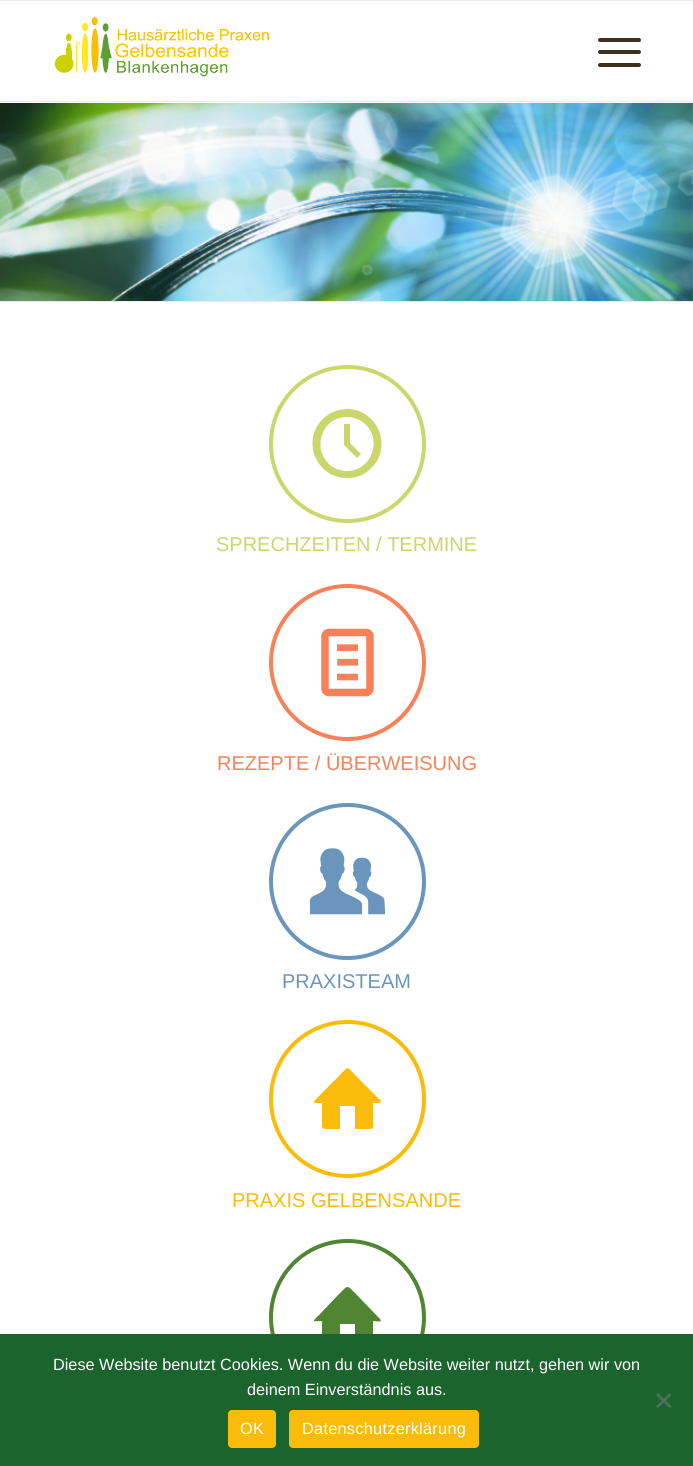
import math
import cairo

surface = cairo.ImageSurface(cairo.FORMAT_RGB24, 693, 1466)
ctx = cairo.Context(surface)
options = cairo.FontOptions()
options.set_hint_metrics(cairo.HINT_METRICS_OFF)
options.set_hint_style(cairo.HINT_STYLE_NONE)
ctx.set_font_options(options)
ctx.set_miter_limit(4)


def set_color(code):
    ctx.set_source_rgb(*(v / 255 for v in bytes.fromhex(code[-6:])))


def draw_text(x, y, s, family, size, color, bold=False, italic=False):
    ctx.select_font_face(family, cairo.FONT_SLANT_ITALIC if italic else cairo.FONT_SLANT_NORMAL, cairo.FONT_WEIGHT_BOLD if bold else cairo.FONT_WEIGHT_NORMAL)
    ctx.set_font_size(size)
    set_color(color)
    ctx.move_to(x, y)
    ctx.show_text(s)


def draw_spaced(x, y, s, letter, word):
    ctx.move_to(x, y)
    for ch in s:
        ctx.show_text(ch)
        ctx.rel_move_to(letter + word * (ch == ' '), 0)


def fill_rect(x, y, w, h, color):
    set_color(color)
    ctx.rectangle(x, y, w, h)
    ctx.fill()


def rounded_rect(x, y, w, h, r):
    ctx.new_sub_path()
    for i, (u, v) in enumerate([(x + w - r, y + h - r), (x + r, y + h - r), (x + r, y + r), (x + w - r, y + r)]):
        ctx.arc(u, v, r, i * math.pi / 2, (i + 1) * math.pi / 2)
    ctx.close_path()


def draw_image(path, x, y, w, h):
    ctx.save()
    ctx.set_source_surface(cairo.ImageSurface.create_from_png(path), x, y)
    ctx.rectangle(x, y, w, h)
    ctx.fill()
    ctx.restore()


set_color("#ffffff")
ctx.paint()
fill_rect(0, 0, 693, 1, "#ebebeb")
fill_rect(0, 101, 693, 1, "#ebebeb")
draw_image("assets/img1.png", 54, 16, 216, 61)
set_color("#3d311e")
rounded_rect(598, 50, 43, 4, 2)
ctx.fill()
rounded_rect(598, 38, 43, 4, 2)
ctx.fill()
rounded_rect(598, 63, 43, 4, 2)
ctx.fill()
draw_image("assets/img2.png", 0, 103, 693, 198)
fill_rect(0, 301, 693, 1, "#ebebeb")
rounded_rect(271, 367, 153, 154, 76.5)
set_color("#c9d76c")
ctx.set_line_width(4)
ctx.stroke()
ctx.new_path()
ctx.move_to(347, 409)
ctx.curve_to(379, 409, 394, 450, 369, 470)
ctx.curve_to(363, 476, 355, 478, 347, 478)
ctx.curve_to(315, 478, 300, 438, 325, 417)
ctx.curve_to(331, 412, 339, 409, 347, 409)
ctx.close_path()
ctx.move_to(347, 471)
ctx.curve_to(372, 471, 383, 439, 364, 423)
ctx.curve_to(359, 419, 353, 417, 347, 417)
ctx.curve_to(322, 417, 311, 448, 330, 465)
ctx.curve_to(335, 469, 341, 471, 347, 471)
ctx.close_path()
ctx.move_to(350, 424)
ctx.line_to(350, 443)
ctx.line_to(361, 454)
ctx.line_to(357, 458)
ctx.line_to(344, 445)
ctx.line_to(344, 424)
ctx.close_path()
ctx.fill()
draw_text(216, 551, "SPRECHZEITEN / TERMINE", "Liberation Sans", 20, "#c9d76c")
ctx.new_path()
ctx.arc(347.5, 662.5, 76.5, 0, 2 * math.pi)
set_color("#f9815a")
ctx.stroke()
draw_image("assets/img3.png", 321, 628, 53, 69)
draw_text(217, 770, "REZEPTE / ÜBERWEISUNG", "Liberation Sans", 20, "#f9815a")
ctx.new_path()
ctx.arc(347.5, 881.5, 76.5, 0, 2 * math.pi)
set_color("#6a96bd")
ctx.stroke()
draw_image("assets/img4.png", 310, 848, 75, 67)
draw_text(282, 988, "PRAXISTEAM", "Liberation Sans", 20, "#6a96bd")
rounded_rect(271, 1022, 153, 154, 76.5)
set_color("#fbbb0a")
ctx.stroke()
ctx.new_path()
ctx.move_to(380, 1100)
ctx.curve_to(384, 1104, 374, 1103, 373, 1103)
ctx.line_to(373, 1122)
ctx.curve_to(373, 1128, 374, 1129, 368, 1129)
ctx.line_to(355, 1129)
ctx.line_to(355, 1106)
ctx.line_to(340, 1106)
ctx.line_to(340, 1129)
ctx.line_to(328, 1129)
ctx.curve_to(321, 1129, 322, 1128, 322, 1122)
ctx.line_to(322, 1103)
ctx.curve_to(312, 1103, 311, 1104, 320, 1095)
ctx.line_to(340, 1075)
ctx.curve_to(348, 1066, 347, 1066, 355, 1075)
ctx.close_path()
ctx.fill()
draw_text(232, 1207, "PRAXIS GELBENSANDE", "Liberation Sans", 20, "#fbbb0a")
ctx.new_path()
ctx.arc(347.5, 1317.5, 76.5, 0, 2 * math.pi)
set_color("#508531")
ctx.stroke()
ctx.new_path()
ctx.move_to(380, 1319)
ctx.curve_to(384, 1323, 374, 1321, 373, 1321)
ctx.line_to(373, 1341)
ctx.curve_to(373, 1347, 374, 1348, 368, 1348)
ctx.line_to(355, 1348)
ctx.line_to(355, 1324)
ctx.line_to(340, 1324)
ctx.line_to(340, 1348)
ctx.line_to(328, 1348)
ctx.curve_to(321, 1348, 322, 1347, 322, 1341)
ctx.line_to(322, 1321)
ctx.curve_to(312, 1321, 311, 1323, 320, 1314)
ctx.line_to(340, 1293)
ctx.curve_to(348, 1285, 347, 1285, 355, 1293)
ctx.close_path()
ctx.fill()
fill_rect(0, 1334, 693, 132, "#1b642d")
draw_text(53, 1370, "Diese Website benutzt Cookies. Wenn du die Website weiter nutzt, gehen wir von", "Liberation Sans", 16.25, "#ffffff")
draw_text(247, 1395, "deinem Einverständnis aus.", "Liberation Sans", 16.25, "#ffffff")
set_color("#4e7257")
ctx.new_path()
ctx.move_to(669.5, 1393)
ctx.line_to(671.5, 1395)
ctx.line_to(658, 1408)
ctx.line_to(656, 1406.5)
ctx.close_path()
ctx.fill()
ctx.new_path()
ctx.move_to(656, 1395)
ctx.line_to(658, 1393)
ctx.line_to(671.5, 1406.5)
ctx.line_to(669.5, 1408)
ctx.close_path()
ctx.fill()
set_color("#fbbb0a")
rounded_rect(228, 1410, 48, 38, 4)
ctx.fill()
set_color("#ffffff")
draw_spaced(240, 1434, "OK", 0.3, 0)
set_color("#fbbb0a")
rounded_rect(289, 1410, 190, 38, 4)
ctx.fill()
set_color("#ffffff")
draw_spaced(302, 1434, "Datenschutzerklärung", 0.3, 0)
surface.write_to_png("output.png")
